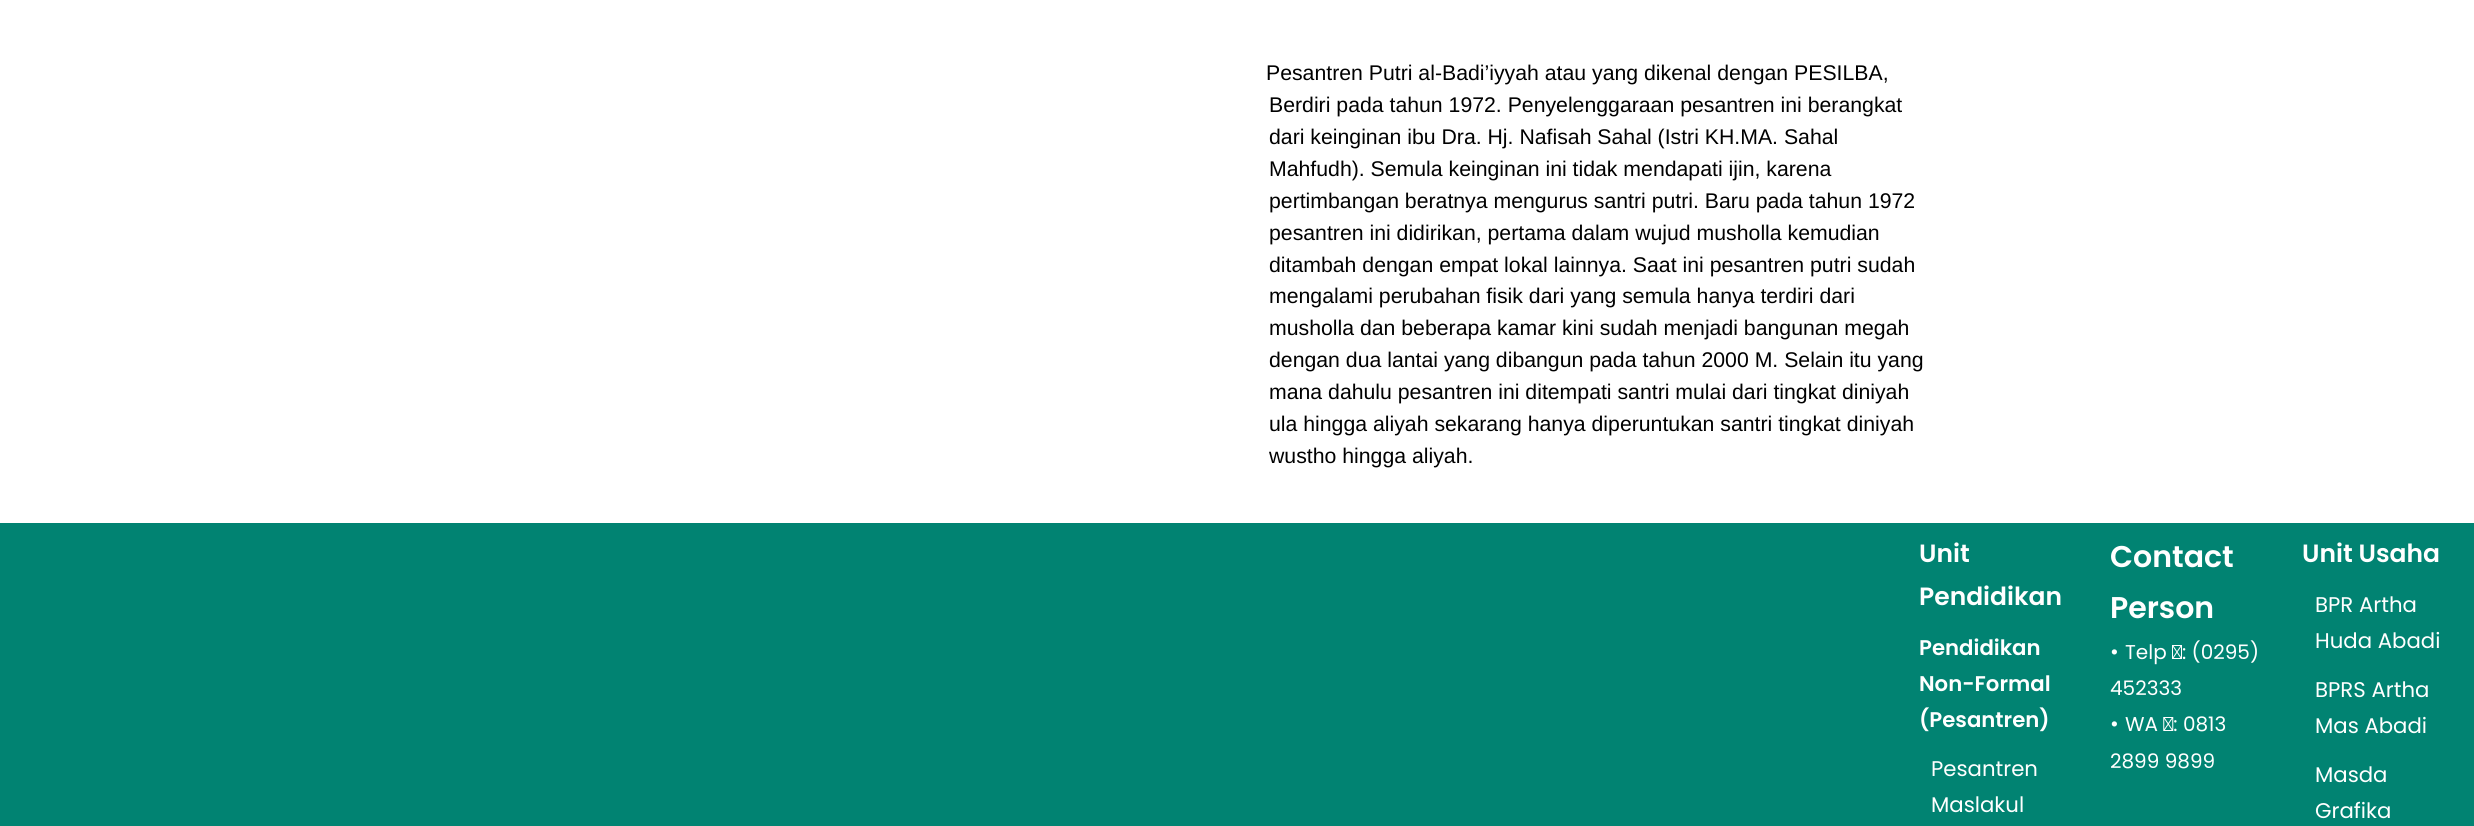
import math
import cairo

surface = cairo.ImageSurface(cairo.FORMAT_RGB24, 2474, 826)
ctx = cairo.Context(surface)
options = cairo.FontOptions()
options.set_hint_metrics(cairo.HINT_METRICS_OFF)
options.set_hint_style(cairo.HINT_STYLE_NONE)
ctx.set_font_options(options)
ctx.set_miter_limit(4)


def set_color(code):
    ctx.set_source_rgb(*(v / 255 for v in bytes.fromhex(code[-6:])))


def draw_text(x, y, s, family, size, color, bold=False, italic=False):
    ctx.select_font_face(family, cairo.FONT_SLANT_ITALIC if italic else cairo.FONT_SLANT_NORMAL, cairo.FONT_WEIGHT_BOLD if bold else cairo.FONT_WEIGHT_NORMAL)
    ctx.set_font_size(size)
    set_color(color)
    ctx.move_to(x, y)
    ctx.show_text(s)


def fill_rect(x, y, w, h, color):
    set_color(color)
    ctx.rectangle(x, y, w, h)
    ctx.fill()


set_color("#ffffff")
ctx.paint()
draw_text(1266, 80, "Pesantren Putri al-Badi’iyyah atau yang dikenal dengan PESILBA,", "Liberation Sans", 21.25, "#000000")
draw_text(1269, 112, "Berdiri pada tahun 1972. Penyelenggaraan pesantren ini berangkat", "Liberation Sans", 21.25, "#000000")
draw_text(1269, 144, "dari keinginan ibu Dra. Hj. Nafisah Sahal (Istri KH.MA. Sahal", "Liberation Sans", 21.25, "#000000")
draw_text(1269, 176, "Mahfudh). Semula keinginan ini tidak mendapati ijin, karena", "Liberation Sans", 21.25, "#000000")
draw_text(1269, 208, "pertimbangan beratnya mengurus santri putri. Baru pada tahun 1972", "Liberation Sans", 21.25, "#000000")
fill_rect(1641, 196, 1, 3, "#ffffff")
draw_text(1269, 240, "pesantren ini didirikan, pertama dalam wujud musholla kemudian", "Liberation Sans", 21.25, "#000000")
draw_text(1269, 272, "ditambah dengan empat lokal lainnya. Saat ini pesantren putri sudah", "Liberation Sans", 21.25, "#000000")
draw_text(1269, 303, "mengalami perubahan fisik dari yang semula hanya terdiri dari", "Liberation Sans", 21.25, "#000000")
draw_text(1269, 335, "musholla dan beberapa kamar kini sudah menjadi bangunan megah", "Liberation Sans", 21.25, "#000000")
draw_text(1269, 367, "dengan dua lantai yang dibangun pada tahun 2000 M. Selain itu yang", "Liberation Sans", 21.25, "#000000")
draw_text(1269, 399, "mana dahulu pesantren ini ditempati santri mulai dari tingkat diniyah", "Liberation Sans", 21.25, "#000000")
draw_text(1269, 431, "ula hingga aliyah sekarang hanya diperuntukan santri tingkat diniyah", "Liberation Sans", 21.25, "#000000")
draw_text(1269, 463, "wustho hingga aliyah.", "Liberation Sans", 21.25, "#000000")
fill_rect(0, 523, 2474, 303, "#018372")
draw_text(1919, 562, "Unit", "Poppins SemiBold", 25, "#ffffff")
draw_text(1919, 605, "Pendidikan", "Poppins SemiBold", 25, "#ffffff")
draw_text(1919, 655, "Pendidikan", "Poppins SemiBold", 21.25, "#ffffff")
draw_text(1919, 691, "Non-Formal", "Poppins SemiBold", 21.25, "#ffffff")
draw_text(1919, 727, "(Pesantren)", "Poppins SemiBold", 21.25, "#ffffff")
draw_text(1931, 776, "Pesantren", "Poppins", 21.25, "#ffffff")
draw_text(1931, 812, "Maslakul", "Poppins", 21.25, "#ffffff")
draw_text(2110, 567, "Contact", "Poppins SemiBold", 30, "#ffffff")
draw_text(2110, 618, "Person", "Poppins SemiBold", 30, "#ffffff")
draw_text(2110, 659, "•", "Poppins", 21.25, "#ffffff")
draw_text(2125, 659, "Telp  : (0295)", "Poppins", 20, "#ffffff")
draw_text(2110, 695, "452333", "Poppins", 20, "#ffffff")
draw_text(2110, 731, "•", "Poppins", 21.25, "#ffffff")
draw_text(2125, 731, "WA  : 0813", "Poppins", 20, "#ffffff")
draw_text(2110, 768, "2899 9899", "Poppins", 20, "#ffffff")
draw_text(2302, 562, "Unit Usaha", "Poppins SemiBold", 25, "#ffffff")
draw_text(2315, 612, "BPR Artha", "Poppins", 21.25, "#ffffff")
draw_text(2315, 648, "Huda Abadi", "Poppins", 21.25, "#ffffff")
draw_text(2315, 697, "BPRS Artha", "Poppins", 21.25, "#ffffff")
draw_text(2315, 733, "Mas Abadi", "Poppins", 21.25, "#ffffff")
draw_text(2315, 782, "Masda", "Poppins", 21.25, "#ffffff")
draw_text(2315, 818, "Grafika", "Poppins", 21.25, "#ffffff")
surface.write_to_png("output.png")
